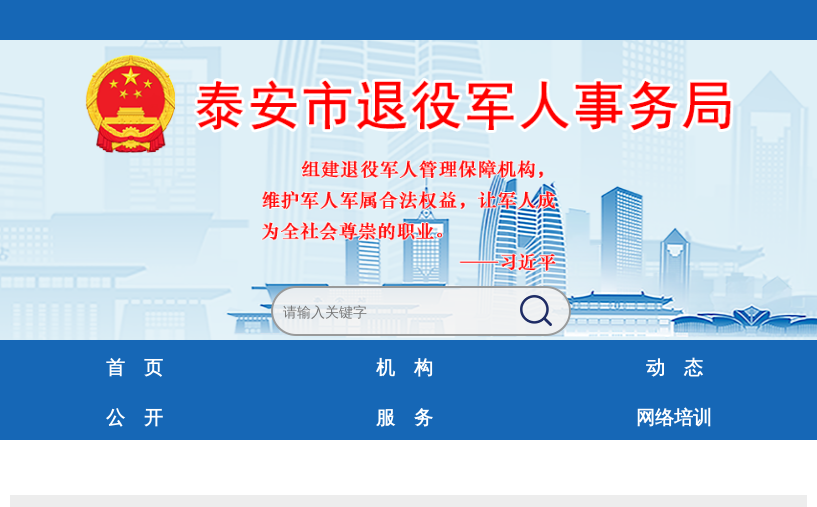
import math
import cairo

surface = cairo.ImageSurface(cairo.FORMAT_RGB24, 817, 507)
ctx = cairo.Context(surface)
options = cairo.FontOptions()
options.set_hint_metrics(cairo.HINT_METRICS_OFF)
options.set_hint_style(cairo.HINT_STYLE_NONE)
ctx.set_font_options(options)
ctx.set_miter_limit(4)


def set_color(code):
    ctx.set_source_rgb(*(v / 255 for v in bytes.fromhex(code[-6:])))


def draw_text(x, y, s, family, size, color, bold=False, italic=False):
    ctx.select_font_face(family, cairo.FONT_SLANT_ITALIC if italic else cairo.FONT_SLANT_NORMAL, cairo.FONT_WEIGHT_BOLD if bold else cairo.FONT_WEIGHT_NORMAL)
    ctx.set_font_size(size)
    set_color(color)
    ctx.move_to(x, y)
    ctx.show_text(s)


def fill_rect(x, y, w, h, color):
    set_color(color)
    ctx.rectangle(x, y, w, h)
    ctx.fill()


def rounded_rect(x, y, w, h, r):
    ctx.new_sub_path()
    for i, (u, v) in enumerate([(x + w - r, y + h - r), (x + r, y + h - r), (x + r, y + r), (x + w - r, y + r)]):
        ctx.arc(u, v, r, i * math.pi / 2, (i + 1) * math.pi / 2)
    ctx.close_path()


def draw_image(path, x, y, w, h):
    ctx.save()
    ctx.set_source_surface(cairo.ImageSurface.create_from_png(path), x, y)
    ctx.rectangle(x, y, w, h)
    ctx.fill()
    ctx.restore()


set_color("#ffffff")
ctx.paint()
fill_rect(0, 0, 817, 40, "#1667b6")
draw_image("assets/img1.png", 0, 40, 817, 300)
draw_image("assets/img2.png", 85, 55, 649, 98)
draw_image("assets/img3.png", 261, 159, 295, 113)
ctx.set_source_rgba(0.953, 0.953, 0.953, 0.9)
rounded_rect(272, 287, 298, 48, 24)
ctx.fill_preserve()
set_color("#999a9a")
ctx.stroke()
draw_text(283, 317, "请输入关键字", "WenQuanYi Zen Hei Medium", 14, "#757575")
draw_image("assets/img4.png", 520, 295, 32, 31)
fill_rect(0, 340, 817, 100, "#1667b6")
draw_text(106, 374, "首　页", "WenQuanYi Zen Hei", 19, "#ffffff", bold=True)
draw_text(376, 374, "机　构", "WenQuanYi Zen Hei", 19, "#ffffff", bold=True)
draw_text(646, 374, "动　态", "WenQuanYi Zen Hei", 19, "#ffffff", bold=True)
draw_text(106, 424, "公　开", "WenQuanYi Zen Hei", 19, "#ffffff", bold=True)
draw_text(376, 424, "服　务", "WenQuanYi Zen Hei", 19, "#ffffff", bold=True)
draw_text(636, 424, "网络培训", "WenQuanYi Zen Hei", 19, "#ffffff", bold=True)
fill_rect(10, 495, 797, 12, "#ededed")
surface.write_to_png("output.png")
